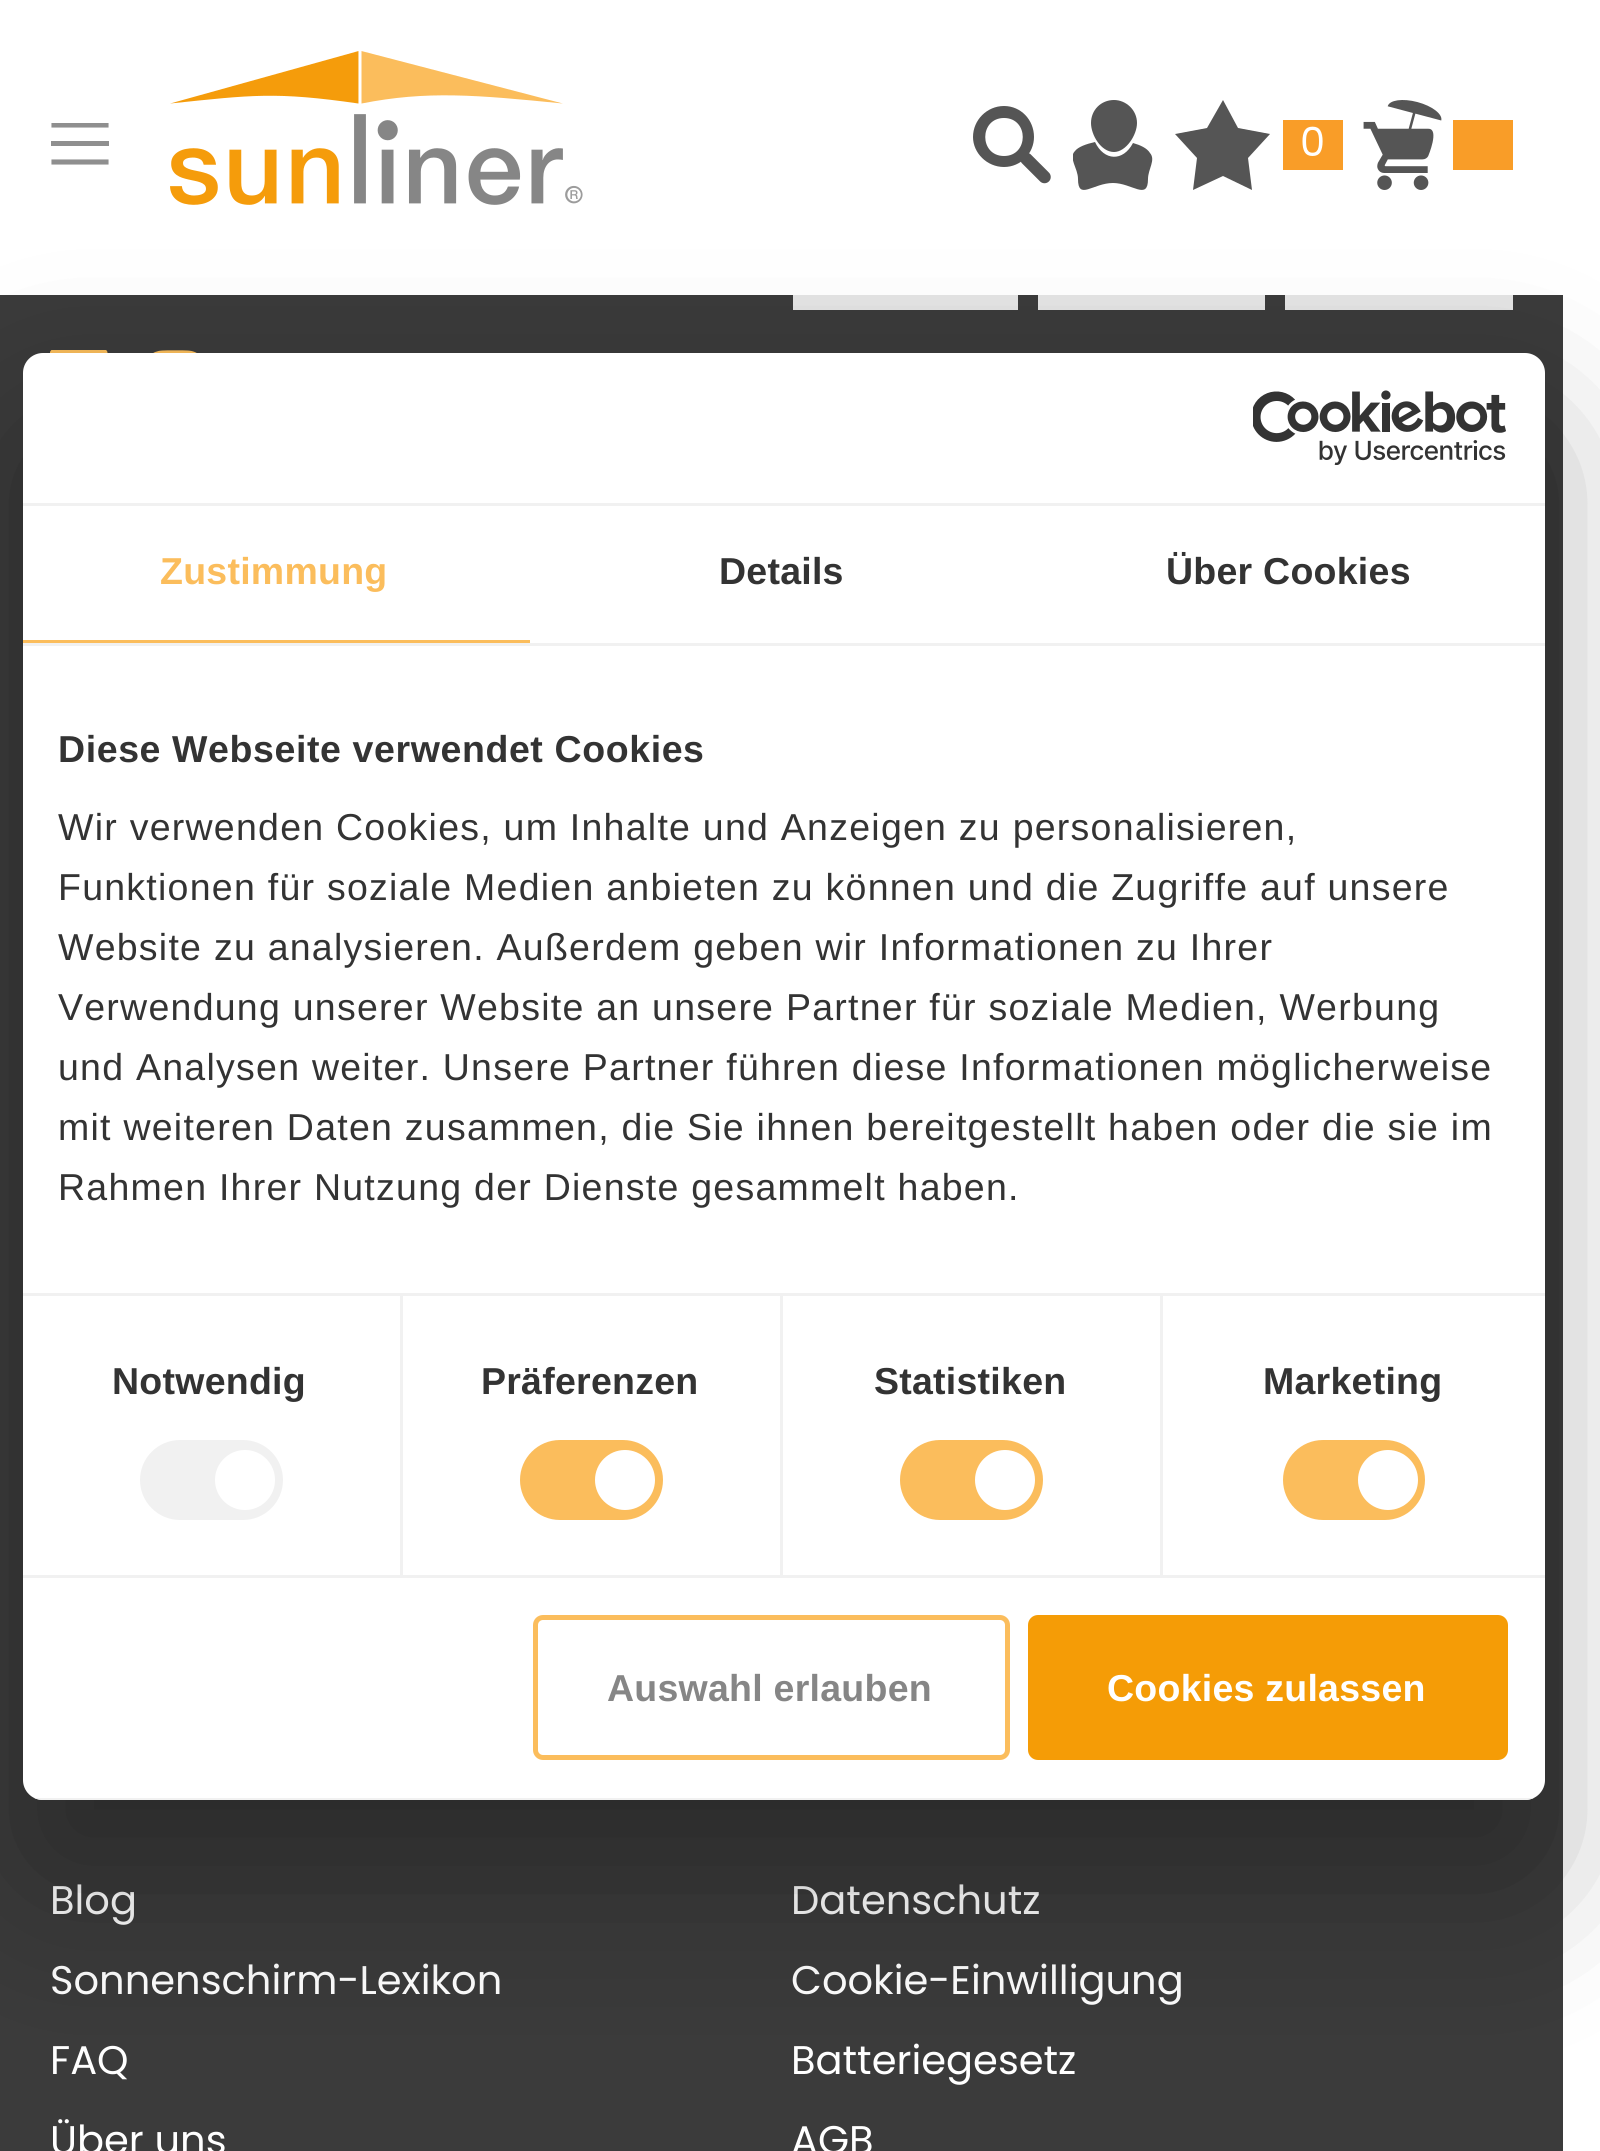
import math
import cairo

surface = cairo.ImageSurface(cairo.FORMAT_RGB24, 1600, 2151)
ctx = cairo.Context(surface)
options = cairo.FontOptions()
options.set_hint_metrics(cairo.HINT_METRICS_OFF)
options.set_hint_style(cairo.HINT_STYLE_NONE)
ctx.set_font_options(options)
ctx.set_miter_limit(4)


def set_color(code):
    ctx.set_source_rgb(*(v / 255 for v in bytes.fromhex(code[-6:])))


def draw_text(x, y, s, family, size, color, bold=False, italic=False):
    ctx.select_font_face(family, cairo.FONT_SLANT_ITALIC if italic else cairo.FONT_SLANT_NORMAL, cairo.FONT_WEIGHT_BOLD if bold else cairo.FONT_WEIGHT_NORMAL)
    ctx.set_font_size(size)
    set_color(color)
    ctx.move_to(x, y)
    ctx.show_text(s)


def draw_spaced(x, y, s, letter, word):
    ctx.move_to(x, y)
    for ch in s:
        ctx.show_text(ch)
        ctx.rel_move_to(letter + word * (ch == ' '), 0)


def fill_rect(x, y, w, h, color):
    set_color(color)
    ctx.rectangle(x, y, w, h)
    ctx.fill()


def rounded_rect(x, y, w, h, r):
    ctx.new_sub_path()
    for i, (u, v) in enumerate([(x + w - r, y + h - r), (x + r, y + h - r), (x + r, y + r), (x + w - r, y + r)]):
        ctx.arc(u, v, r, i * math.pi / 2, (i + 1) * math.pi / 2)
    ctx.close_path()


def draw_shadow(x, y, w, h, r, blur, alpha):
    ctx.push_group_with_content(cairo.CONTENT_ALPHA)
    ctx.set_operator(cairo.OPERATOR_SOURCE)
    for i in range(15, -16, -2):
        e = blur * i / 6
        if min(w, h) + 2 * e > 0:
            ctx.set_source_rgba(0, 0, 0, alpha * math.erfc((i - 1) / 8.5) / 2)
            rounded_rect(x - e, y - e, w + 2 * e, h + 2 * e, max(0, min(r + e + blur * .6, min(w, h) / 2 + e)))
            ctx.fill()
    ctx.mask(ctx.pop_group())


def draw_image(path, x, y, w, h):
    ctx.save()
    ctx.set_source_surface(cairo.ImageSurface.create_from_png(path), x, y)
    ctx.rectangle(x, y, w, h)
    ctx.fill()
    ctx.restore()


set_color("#ffffff")
ctx.paint()
ctx.save()
ctx.rectangle(50, 123, 60, 45)
ctx.clip()
ctx.new_path()
ctx.move_to(54, 125)
ctx.line_to(106, 125)
set_color("#8f8f8f")
ctx.set_line_width(5.1)
ctx.set_line_cap(cairo.LINE_CAP_SQUARE)
ctx.stroke()
ctx.restore()
fill_rect(51, 141, 58, 5, "#8f8f8f")
ctx.new_path()
ctx.move_to(54, 162)
ctx.line_to(106, 162)
ctx.set_line_width(5.1)
ctx.set_line_cap(cairo.LINE_CAP_SQUARE)
ctx.stroke()
draw_image("assets/img1.png", 170, 51, 413, 154)
ctx.new_path()
ctx.move_to(1044.5, 177)
ctx.line_to(1026.5, 159)
set_color("#555555")
ctx.set_line_width(12.5)
ctx.set_line_cap(cairo.LINE_CAP_ROUND)
ctx.set_line_join(cairo.LINE_JOIN_BEVEL)
ctx.stroke()
ctx.set_fill_rule(cairo.FILL_RULE_EVEN_ODD)
ctx.new_path()
ctx.move_to(1004, 106)
ctx.curve_to(987, 106, 973, 120, 973, 137)
ctx.curve_to(973, 153, 987, 167, 1004, 167)
ctx.curve_to(1021, 167, 1034, 153, 1034, 137)
ctx.curve_to(1034, 120, 1021, 106, 1004, 106)
ctx.close_path()
ctx.move_to(1004, 118)
ctx.curve_to(1029, 118, 1029, 156, 1004, 156)
ctx.curve_to(979, 156, 979, 118, 1004, 118)
ctx.close_path()
ctx.fill()
ctx.save()
ctx.set_fill_rule(cairo.FILL_RULE_WINDING)
ctx.rectangle(1073, 100, 80, 90)
ctx.clip()
ctx.set_fill_rule(cairo.FILL_RULE_EVEN_ODD)
ctx.new_path()
ctx.move_to(1148, 179)
ctx.curve_to(1148, 201, 1132, 183, 1113, 183)
ctx.curve_to(1093, 183, 1078, 201, 1078, 179)
ctx.curve_to(1078, 168, 1068, 158, 1075, 151)
ctx.curve_to(1078, 147, 1086, 144, 1095, 142)
ctx.curve_to(1104, 161, 1123, 162, 1133, 143)
ctx.curve_to(1140, 145, 1147, 148, 1150, 153)
ctx.curve_to(1156, 160, 1148, 169, 1148, 179)
ctx.close_path()
ctx.move_to(1114, 152)
ctx.curve_to(1101, 152, 1091, 135, 1091, 123)
ctx.curve_to(1091, 110, 1101, 100, 1114, 100)
ctx.curve_to(1126, 100, 1137, 110, 1137, 123)
ctx.curve_to(1137, 135, 1126, 152, 1114, 152)
ctx.close_path()
ctx.fill()
ctx.restore()
ctx.new_path()
ctx.move_to(1223, 100)
ctx.line_to(1238, 128)
ctx.line_to(1270, 134)
ctx.line_to(1248, 158)
ctx.line_to(1252, 190)
ctx.line_to(1223, 176)
ctx.line_to(1193, 190)
ctx.line_to(1197, 158)
ctx.line_to(1175, 134)
ctx.line_to(1207, 128)
ctx.line_to(1223, 100)
ctx.fill()
fill_rect(1283, 120, 60, 50, "#f99d28")
draw_text(1300, 156, "0", "Poppins", 40, "#ffffff")
draw_image("assets/img2.png", 1363, 100, 79, 90)
fill_rect(1453, 120, 60, 50, "#f99d28")
fill_rect(0, 295, 1563, 1856, "#3b3b3b")
fill_rect(793, 295, 225, 15, "#e4e4e4")
fill_rect(1038, 295, 227, 15, "#e4e4e4")
fill_rect(1285, 295, 228, 15, "#e4e4e4")
draw_image("assets/img3.png", 50, 350, 58, 3)
draw_image("assets/img4.png", 153, 350, 44, 3)
draw_text(50, 1914, "Blog", "Poppins", 40, "#ffffff")
draw_text(50, 1994, "Sonnenschirm-Lexikon", "Poppins", 40, "#ffffff")
draw_text(50, 2074, "FAQ", "Poppins", 40, "#ffffff")
draw_text(50, 2154, "Über uns", "Poppins", 40, "#ffffff")
draw_text(791, 1914, "Datenschutz", "Poppins", 40, "#ffffff")
draw_text(791, 1994, "Cookie-Einwilligung", "Poppins", 40, "#ffffff")
draw_text(791, 2074, "Batteriegesetz", "Poppins", 40, "#ffffff")
draw_text(791, 2154, "AGB", "Poppins", 40, "#ffffff")
ctx.save()
ctx.new_path()
ctx.move_to(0, 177)
ctx.line_to(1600, 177)
ctx.line_to(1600, 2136)
ctx.line_to(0, 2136)
ctx.close_path()
ctx.move_to(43, 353)
ctx.line_to(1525, 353)
ctx.curve_to(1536, 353, 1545, 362, 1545, 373)
ctx.line_to(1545, 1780)
ctx.curve_to(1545, 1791, 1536, 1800, 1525, 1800)
ctx.line_to(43, 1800)
ctx.curve_to(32, 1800, 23, 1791, 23, 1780)
ctx.line_to(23, 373)
ctx.curve_to(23, 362, 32, 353, 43, 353)
ctx.close_path()
ctx.clip()
set_color("#000000")
draw_shadow(23, 433, 1522, 1447, 20, 85, 0.3)
ctx.restore()
rounded_rect(23, 353, 1522, 1447, 20)
ctx.fill()
fill_rect(23, 503, 1522, 3, "#f1f1f1")
draw_image("assets/img5.png", 1253, 390, 253, 75)
fill_rect(23, 643, 1522, 3, "#f1f1f1")
fill_rect(23, 640, 507, 3, "#fbbd5c")
ctx.select_font_face("Liberation Sans", cairo.FONT_SLANT_NORMAL, cairo.FONT_WEIGHT_BOLD)
ctx.set_font_size(37.5)
draw_spaced(160, 584, "Zustimmung", 0.25, 0)
set_color("#333333")
draw_spaced(719, 584, "Details", 0.25, 0)
draw_spaced(1166, 584, "Über Cookies", 0.25, 0)
fill_rect(400, 1295, 3, 280, "#f1f1f1")
fill_rect(780, 1295, 3, 280, "#f1f1f1")
fill_rect(1160, 1295, 3, 280, "#f1f1f1")
fill_rect(23, 1293, 1522, 3, "#f1f1f1")
set_color("#333333")
draw_spaced(58, 762, "Diese Webseite verwendet Cookies", 0.6, 0)
ctx.select_font_face("Liberation Sans")
draw_spaced(58, 840, "Wir verwenden Cookies, um Inhalte und Anzeigen zu personalisieren,", 1.25, 0)
draw_spaced(58, 900, "Funktionen für soziale Medien anbieten zu können und die Zugriffe auf unsere", 1.25, 0)
draw_spaced(58, 960, "Website zu analysieren. Außerdem geben wir Informationen zu Ihrer", 1.25, 0)
draw_spaced(58, 1020, "Verwendung unserer Website an unsere Partner für soziale Medien, Werbung", 1.25, 0)
draw_spaced(58, 1080, "und Analysen weiter. Unsere Partner führen diese Informationen möglicherweise", 1.25, 0)
draw_spaced(58, 1140, "mit weiteren Daten zusammen, die Sie ihnen bereitgestellt haben oder die sie im", 1.25, 0)
draw_spaced(58, 1200, "Rahmen Ihrer Nutzung der Dienste gesammelt haben.", 1.25, 0)
fill_rect(23, 1575, 1522, 3, "#f1f1f1")
ctx.select_font_face("Liberation Sans", cairo.FONT_SLANT_NORMAL, cairo.FONT_WEIGHT_BOLD)
set_color("#333333")
draw_spaced(112, 1394, "Notwendig", 0.25, 0)
set_color("#f1f1f1")
rounded_rect(140, 1440, 143, 80, 40)
ctx.fill()
set_color("#ffffff")
ctx.arc(245, 1480, 30, 0, 2 * math.pi)
ctx.fill()
set_color("#333333")
draw_spaced(481, 1394, "Präferenzen", 0.25, 0)
set_color("#fbbd5c")
rounded_rect(520, 1440, 143, 80, 40)
ctx.fill()
set_color("#ffffff")
ctx.arc(625, 1480, 30, 0, 2 * math.pi)
ctx.fill()
set_color("#333333")
draw_spaced(874, 1394, "Statistiken", 0.25, 0)
set_color("#fbbd5c")
rounded_rect(900, 1440, 143, 80, 40)
ctx.fill()
set_color("#ffffff")
ctx.arc(1005, 1480, 30, 0, 2 * math.pi)
ctx.fill()
set_color("#333333")
draw_spaced(1263, 1394, "Marketing", 0.25, 0)
set_color("#fbbd5c")
rounded_rect(1283, 1440, 142, 80, 40)
ctx.fill()
set_color("#ffffff")
ctx.arc(1388, 1480, 30, 0, 2 * math.pi)
ctx.fill()
ctx.save()
ctx.set_fill_rule(cairo.FILL_RULE_WINDING)
rounded_rect(23, 353, 1522, 1447, 20)
ctx.clip()
fill_rect(34, 1798, 1500, 2, "#f1f1f1")
ctx.restore()
rounded_rect(535.5, 1617.5, 472, 140, 7.5)
set_color("#fbbd5c")
ctx.set_line_width(5)
ctx.set_line_cap(cairo.LINE_CAP_BUTT)
ctx.set_line_join(cairo.LINE_JOIN_MITER)
ctx.stroke()
set_color("#868686")
draw_spaced(607, 1701, "Auswahl erlauben", 0.25, 0)
set_color("#f59c06")
rounded_rect(1030.5, 1617.5, 475, 140, 7.5)
ctx.fill_preserve()
ctx.stroke()
set_color("#ffffff")
draw_spaced(1107, 1701, "Cookies zulassen", 0.25, 0)
surface.write_to_png("output.png")
